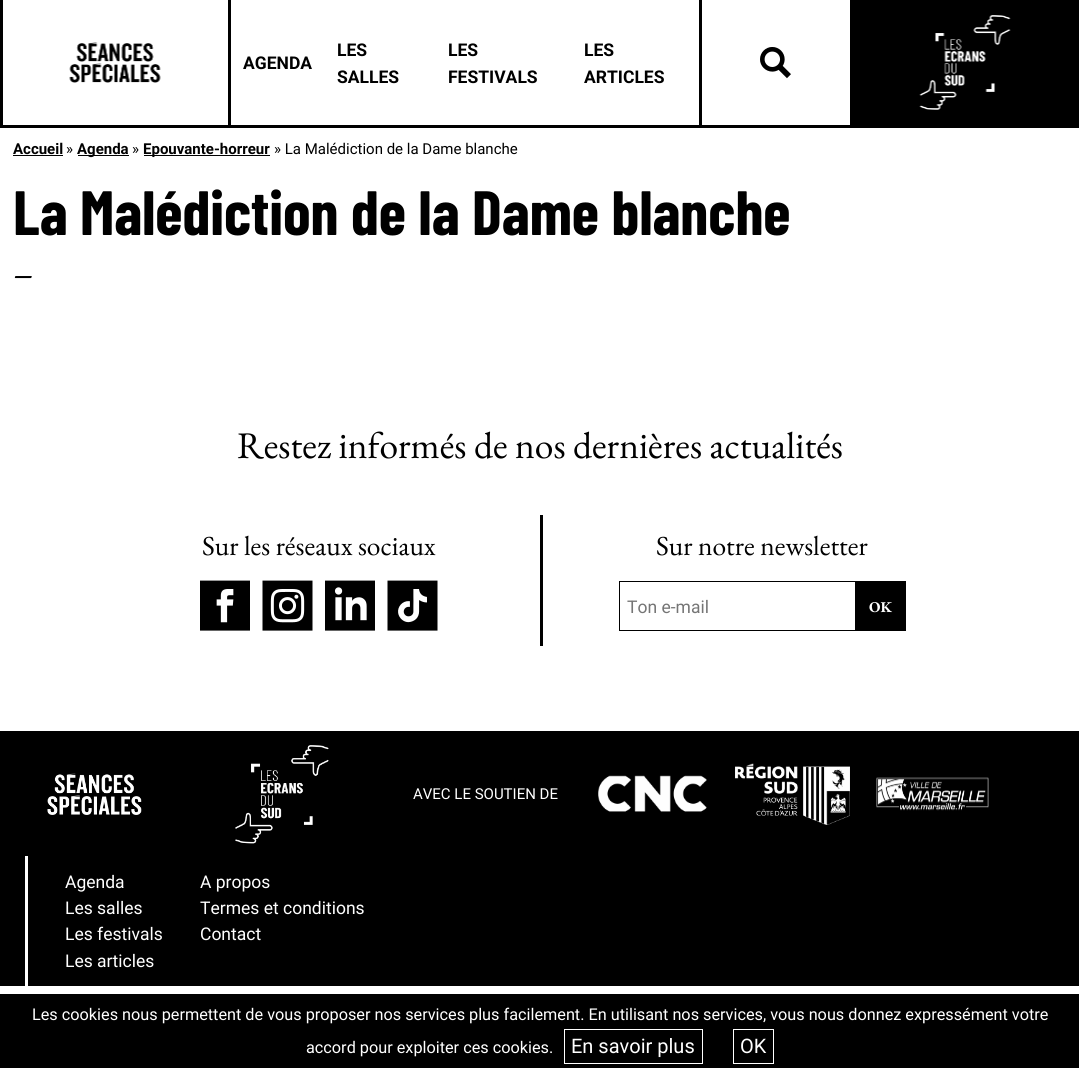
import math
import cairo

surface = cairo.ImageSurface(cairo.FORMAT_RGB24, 1079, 1068)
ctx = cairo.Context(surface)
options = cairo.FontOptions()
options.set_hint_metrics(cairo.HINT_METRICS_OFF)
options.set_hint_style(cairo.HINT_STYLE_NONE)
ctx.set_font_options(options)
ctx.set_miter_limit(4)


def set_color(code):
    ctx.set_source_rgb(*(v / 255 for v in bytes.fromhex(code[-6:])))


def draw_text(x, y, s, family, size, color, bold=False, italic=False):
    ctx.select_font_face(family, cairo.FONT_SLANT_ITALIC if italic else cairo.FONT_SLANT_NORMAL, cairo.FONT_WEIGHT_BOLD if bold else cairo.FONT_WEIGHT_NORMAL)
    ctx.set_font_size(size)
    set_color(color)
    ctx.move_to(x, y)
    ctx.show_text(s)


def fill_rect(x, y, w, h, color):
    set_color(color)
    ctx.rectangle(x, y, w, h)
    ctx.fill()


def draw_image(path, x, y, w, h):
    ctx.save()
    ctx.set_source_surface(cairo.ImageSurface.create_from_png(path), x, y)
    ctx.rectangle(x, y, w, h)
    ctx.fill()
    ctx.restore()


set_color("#ffffff")
ctx.paint()
fill_rect(0, 125, 1079, 3, "#000000")
fill_rect(0, 0, 3, 125, "#000000")
draw_image("assets/img1.png", 69, 42, 92, 41)
fill_rect(850, 0, 229, 125, "#000000")
fill_rect(699, 0, 3, 125, "#000000")
draw_image("assets/img2.png", 760, 47, 31, 32)
fill_rect(228, 0, 3, 128, "#000000")
draw_text(243, 69, "AGENDA", "Roboto", 17.5, "#000000", bold=True)
draw_text(337, 56, "LES", "Roboto", 17.5, "#000000", bold=True)
draw_text(337, 83, "SALLES", "Roboto", 17.5, "#000000", bold=True)
draw_text(448, 56, "LES", "Roboto", 17.5, "#000000", bold=True)
draw_text(448, 83, "FESTIVALS", "Roboto", 17.5, "#000000", bold=True)
draw_text(584, 56, "LES", "Roboto", 17.5, "#000000", bold=True)
draw_text(584, 83, "ARTICLES", "Roboto", 17.5, "#000000", bold=True)
draw_image("assets/img3.png", 919, 15, 92, 95)
draw_text(13, 154, "Accueil", "Roboto", 15, "#000000", bold=True)
fill_rect(13, 155, 50, 1, "#000000")
draw_text(66, 154, "»", "Roboto", 15, "#000000")
fill_rect(78, 155, 51, 1, "#000000")
draw_text(77, 154, "Agenda", "Roboto", 15, "#000000", bold=True)
draw_text(132, 154, "»", "Roboto", 15, "#000000")
fill_rect(144, 155, 126, 1, "#000000")
draw_text(143, 154, "Epouvante-horreur", "Roboto", 15, "#000000", bold=True)
draw_text(274, 154, "» La Malédiction de la Dame blanche", "Roboto", 15, "#000000")
draw_text(13, 235, "La Malédiction de la Dame blanche", "Barlow Condensed", 62.5, "#000000", bold=True)
draw_text(13, 285, "–", "EB Garamond", 37.5, "#000000")
draw_text(237, 458, "Restez informés de nos dernières actualités", "EB Garamond", 37.5, "#000000")
draw_text(202, 555, "Sur les réseaux sociaux", "EB Garamond", 27.5, "#000000")
draw_image("assets/img4.png", 200, 580, 50, 51)
draw_image("assets/img5.png", 262, 580, 51, 51)
draw_image("assets/img6.png", 325, 580, 50, 51)
draw_image("assets/img7.png", 387, 580, 51, 51)
fill_rect(540, 515, 3, 131, "#000000")
draw_text(656, 555, "Sur notre newsletter", "EB Garamond", 27.5, "#000000")
ctx.rectangle(619.5, 581.5, 236, 49)
ctx.set_line_width(1)
ctx.stroke()
draw_text(627, 613, "Ton e-mail", "Roboto", 17.5, "#757575")
fill_rect(856, 581, 50, 50, "#000000")
draw_text(869, 612, "OK", "EB Garamond", 15, "#ffffff", bold=True)
fill_rect(0, 731, 1079, 255, "#000000")
draw_image("assets/img8.png", 47, 773, 95, 42)
draw_image("assets/img9.png", 235, 745, 94, 99)
draw_text(413, 799, "AVEC LE SOUTIEN DE", "Roboto", 15, "#ffffff")
draw_image("assets/img10.png", 598, 775, 109, 37)
draw_image("assets/img11.png", 735, 763, 115, 62)
draw_image("assets/img12.png", 876, 777, 113, 34)
fill_rect(25, 856, 3, 130, "#ffffff")
draw_text(65, 888, "Agenda", "Roboto", 17.5, "#ffffff")
draw_text(65, 914, "Les salles", "Roboto", 17.5, "#ffffff")
draw_text(65, 940, "Les festivals", "Roboto", 17.5, "#ffffff")
draw_text(65, 967, "Les articles", "Roboto", 17.5, "#ffffff")
draw_text(200, 888, "A propos", "Roboto", 17.5, "#ffffff")
draw_text(200, 914, "Termes et conditions", "Roboto", 17.5, "#ffffff")
draw_text(200, 940, "Contact", "Roboto", 17.5, "#ffffff")
fill_rect(0, 994, 1079, 74, "#000000")
draw_text(32, 1020, "Les cookies nous permettent de vous proposer nos services plus facilement. En utilisant nos services, vous nous donnez expressément votre", "Roboto", 16.25, "#ffffff")
draw_text(306, 1053, "accord pour exploiter ces cookies.", "Roboto", 16.25, "#ffffff")
ctx.rectangle(564.5, 1029.5, 138, 34)
ctx.stroke()
draw_text(571, 1053, "En savoir plus", "Roboto", 20, "#ffffff")
ctx.rectangle(733.5, 1029.5, 40, 34)
ctx.stroke()
draw_text(740, 1053, "OK", "Roboto", 20, "#ffffff")
surface.write_to_png("output.png")
